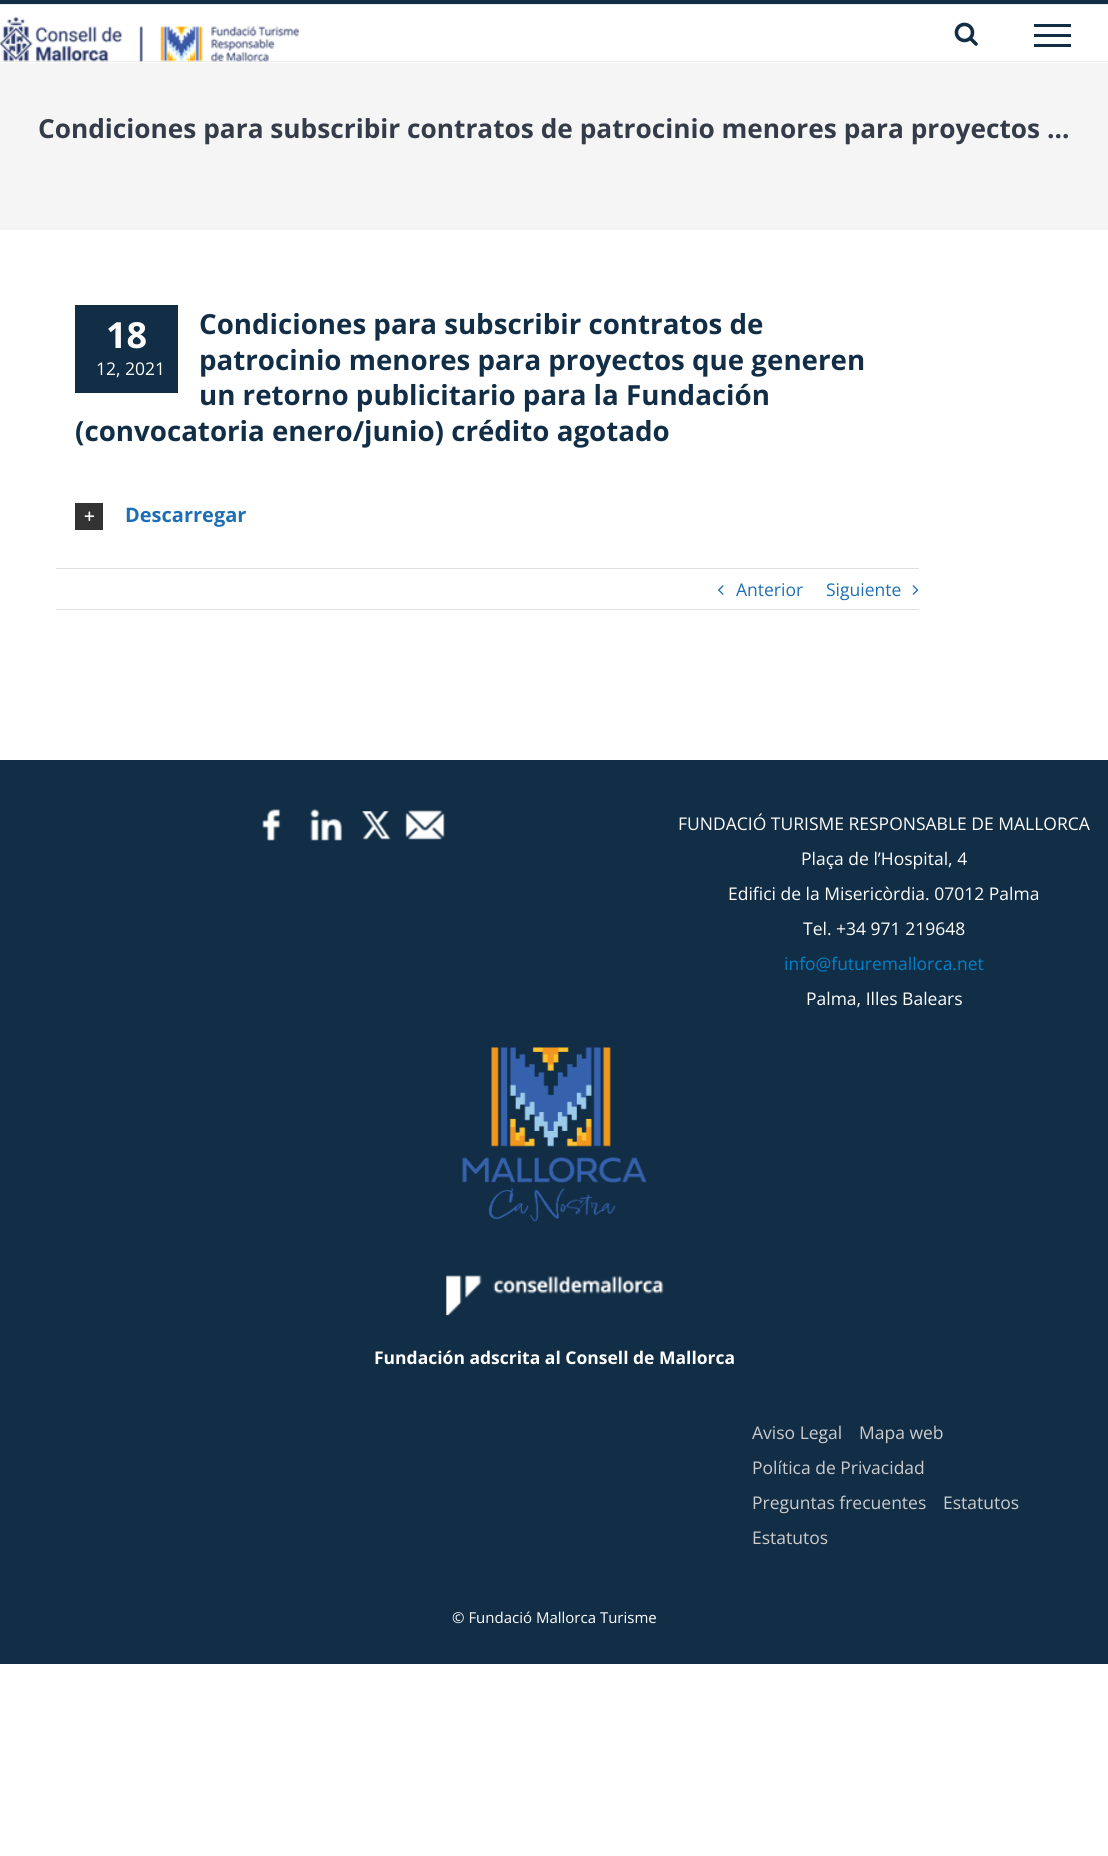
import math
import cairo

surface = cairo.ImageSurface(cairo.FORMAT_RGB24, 1108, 1856)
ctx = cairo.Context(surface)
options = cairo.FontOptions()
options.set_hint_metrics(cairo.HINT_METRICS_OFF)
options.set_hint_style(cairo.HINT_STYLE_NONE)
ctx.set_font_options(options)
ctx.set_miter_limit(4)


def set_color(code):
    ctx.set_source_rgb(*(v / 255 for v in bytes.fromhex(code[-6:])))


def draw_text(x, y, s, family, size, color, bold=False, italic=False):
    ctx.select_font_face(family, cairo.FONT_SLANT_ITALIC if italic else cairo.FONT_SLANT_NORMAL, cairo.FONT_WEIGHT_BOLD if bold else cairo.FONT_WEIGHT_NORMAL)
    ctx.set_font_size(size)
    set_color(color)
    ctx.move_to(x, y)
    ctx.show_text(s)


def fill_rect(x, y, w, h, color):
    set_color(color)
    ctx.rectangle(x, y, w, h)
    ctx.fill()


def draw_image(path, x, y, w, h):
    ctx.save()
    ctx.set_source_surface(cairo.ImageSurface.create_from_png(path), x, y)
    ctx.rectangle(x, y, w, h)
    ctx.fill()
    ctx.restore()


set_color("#ffffff")
ctx.paint()
fill_rect(0, 0, 1108, 4, "#122e46")
fill_rect(0, 4, 1108, 1, "#ebebeb")
fill_rect(0, 61, 1108, 1, "#ebebeb")
draw_image("assets/img1.png", 0, 17, 299, 45)
draw_image("assets/img2.png", 954, 22, 24, 24)
fill_rect(1034, 24, 37, 3, "#122e46")
fill_rect(1034, 34, 37, 3, "#122e46")
fill_rect(1034, 44, 37, 3, "#122e46")
fill_rect(0, 63, 1108, 167, "#f5f5f5")
draw_text(38, 138, "Condiciones para subscribir contratos de patrocinio menores para proyectos …", "Open Sans", 26.25, "#343b49", bold=True)
draw_text(199, 334, "Condiciones para subscribir contratos de", "Open Sans", 27.7, "#122e46", bold=True)
draw_text(199, 370, "patrocinio menores para proyectos que generen", "Open Sans", 27.7, "#122e46", bold=True)
draw_text(199, 405, "un retorno publicitario para la Fundación", "Open Sans", 27.7, "#122e46", bold=True)
draw_text(75, 441, "(convocatoria enero/junio) crédito agotado", "Open Sans", 27.7, "#122e46", bold=True)
fill_rect(75, 305, 103, 88, "#122e46")
draw_text(106, 348, "18", "Open Sans", 36, "#ffffff", bold=True)
draw_text(96, 375, "12, 2021", "Open Sans", 17.5, "#ffffff")
fill_rect(75, 503, 28, 27, "#333333")
draw_image("assets/img3.png", 84, 511, 11, 10)
draw_text(125, 522, "Descarregar", "Open Sans", 20, "#1e6eb5", bold=True)
fill_rect(56, 568, 863, 1, "#e0dede")
fill_rect(56, 609, 863, 1, "#e0dede")
draw_image("assets/img4.png", 718, 585, 6, 10)
draw_text(736, 596, "Anterior", "Open Sans", 17.5, "#1e6eb5")
draw_text(826, 596, "Siguiente", "Open Sans", 17.5, "#1e6eb5")
draw_image("assets/img5.png", 912, 585, 7, 10)
fill_rect(0, 760, 1108, 904, "#122e46")
draw_image("assets/img6.png", 262, 809, 19, 32)
draw_image("assets/img7.png", 310, 809, 33, 32)
draw_image("assets/img8.png", 362, 811, 29, 29)
draw_image("assets/img9.png", 405, 810, 40, 30)
draw_text(678, 830, "FUNDACIÓ TURISME RESPONSABLE DE MALLORCA", "Open Sans", 17.5, "#ffffff")
draw_text(801, 865, "Plaça de l’Hospital, 4", "Open Sans", 17.5, "#ffffff")
draw_text(728, 900, "Edifici de la Misericòrdia. 07012 Palma", "Open Sans", 17.5, "#ffffff")
draw_text(803, 935, "Tel. +34 971 219648", "Open Sans", 17.5, "#ffffff")
draw_text(784, 970, "info@futuremallorca.net", "Open Sans", 17.5, "#0082ca")
draw_text(806, 1005, "Palma, Illes Balears", "Open Sans", 17.5, "#ffffff")
draw_image("assets/img10.png", 462, 1047, 185, 175)
draw_image("assets/img11.png", 446, 1275, 218, 41)
draw_text(374, 1364, "Fundación adscrita al Consell de Mallorca", "Open Sans", 17.5, "#ffffff", bold=True)
draw_text(752, 1439, "Aviso Legal", "Open Sans", 17.5, "#cccccc")
draw_text(859, 1439, "Mapa web", "Open Sans", 17.5, "#cccccc")
draw_text(752, 1474, "Política de Privacidad", "Open Sans", 17.5, "#cccccc")
draw_text(752, 1509, "Preguntas frecuentes", "Open Sans", 17.5, "#cccccc")
draw_text(943, 1509, "Estatutos", "Open Sans", 17.5, "#cccccc")
draw_text(752, 1544, "Estatutos", "Open Sans", 17.5, "#cccccc")
draw_text(452, 1623, "© Fundació Mallorca Turisme", "Open Sans", 15, "#ffffff")
surface.write_to_png("output.png")
